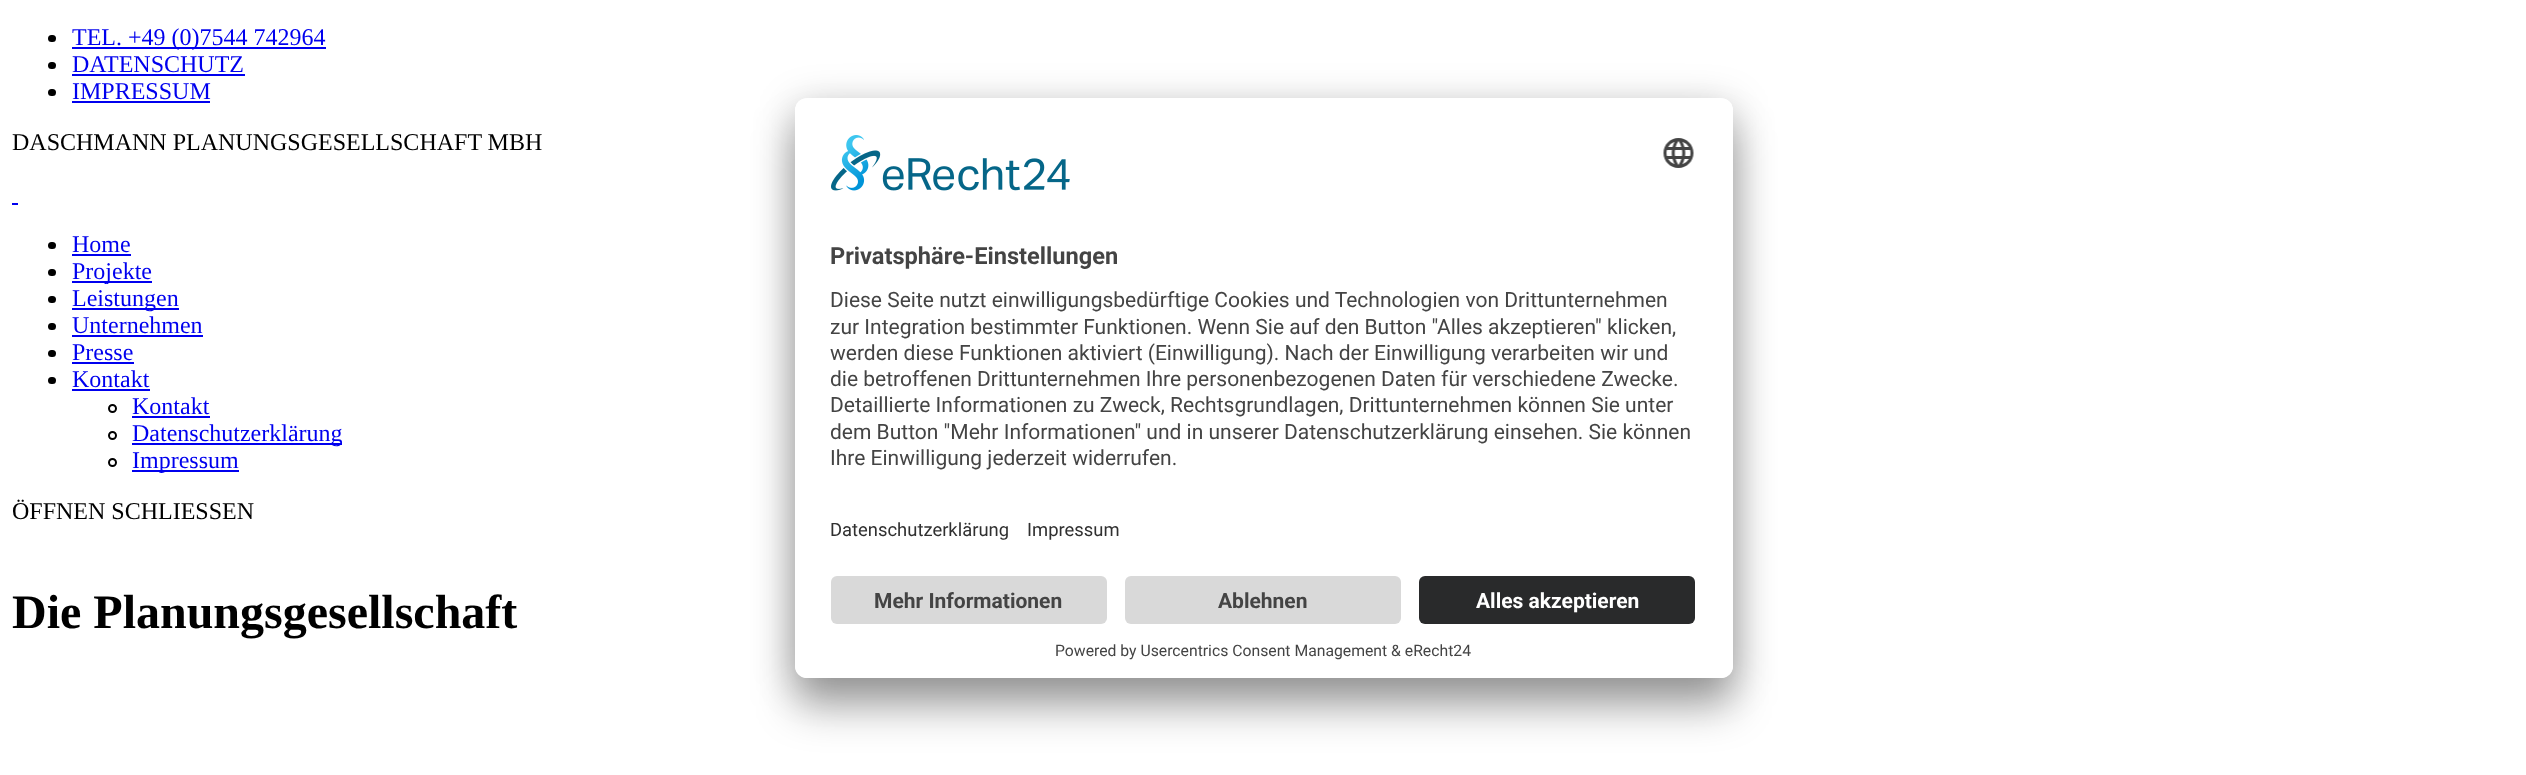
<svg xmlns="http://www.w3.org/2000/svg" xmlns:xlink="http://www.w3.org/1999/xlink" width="2526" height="775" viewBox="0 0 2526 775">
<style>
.cls-1{font:24px Liberation Serif;fill:#0000ee}
.cls-2{font:24px Liberation Serif;fill:#000000}
.cls-3{font:bold 48px Liberation Serif;fill:#000000}
.cls-4{font:bold 23.6px Roboto;fill:#444444}
.cls-5{font:21px Roboto;fill:#444444}
.cls-6{font:18.4px Roboto;fill:#303030}
.cls-7{font:bold 21px Roboto;fill:#444444}
.cls-8{font:bold 21px Roboto;fill:#ffffff}
.cls-9{font:15.75px Roboto;fill:#444444}
</style>
<defs>
<clipPath id="clip1"><rect x="795" y="98" width="938" height="580" rx="12"/></clipPath>
<clipPath id="clip2"><path d="M807 98H1721C1727.5 98 1733 103.5 1733 110V564H795V110C795 103.5 800.5 98 807 98Z"/></clipPath>
</defs>
<rect width="100%" height="100%" fill="#ffffff"/>
<rect fill="#000000" x="48" y="35" width="8" height="7" rx="3.5"/>
<rect fill="#0000ee" x="72" y="47" width="254" height="2"/>
<rect fill="#000000" x="48" y="62" width="8" height="7" rx="3.5"/>
<rect fill="#0000ee" x="72" y="74" width="173" height="2"/>
<rect fill="#000000" x="48" y="89" width="8" height="7" rx="3.5"/>
<rect fill="#0000ee" x="72" y="101" width="138" height="2"/>
<rect fill="#0000ee" x="12" y="203" width="6" height="2"/>
<rect fill="#000000" x="48" y="242" width="8" height="7" rx="3.5"/>
<rect fill="#0000ee" x="72" y="254" width="59" height="2"/>
<rect fill="#000000" x="48" y="269" width="8" height="7" rx="3.5"/>
<rect fill="#0000ee" x="72" y="281" width="80" height="2"/>
<rect fill="#000000" x="48" y="296" width="8" height="7" rx="3.5"/>
<rect fill="#0000ee" x="72" y="308" width="107" height="2"/>
<rect fill="#000000" x="48" y="323" width="8" height="7" rx="3.5"/>
<rect fill="#0000ee" x="72" y="335" width="131" height="2"/>
<rect fill="#000000" x="48" y="350" width="8" height="7" rx="3.5"/>
<rect fill="#0000ee" x="72" y="362" width="62" height="2"/>
<rect fill="#000000" x="48" y="377" width="8" height="7" rx="3.5"/>
<rect fill="#0000ee" x="72" y="389" width="78" height="2"/>
<circle fill="none" stroke="#000000" stroke-width="2" cx="112.5" cy="408.5" r="3.5"/>
<rect fill="#0000ee" x="132" y="416" width="78" height="2"/>
<circle fill="none" stroke="#000000" stroke-width="2" cx="112.5" cy="435.5" r="3.5"/>
<rect fill="#0000ee" x="132" y="443" width="210" height="2"/>
<circle fill="none" stroke="#000000" stroke-width="2" cx="112.5" cy="462.5" r="3.5"/>
<rect fill="#0000ee" x="132" y="470" width="107" height="2"/>
<rect fill="#000000" fill-opacity="0.3" filter="blur(21px)" x="795" y="128" width="938" height="580" rx="12"/>
<rect fill="#000000" fill-opacity="0.22" filter="blur(19.5px)" x="795" y="105" width="938" height="581" rx="12"/>
<rect fill="#ffffff" x="795" y="98" width="938" height="580" rx="12"/>
<g clip-path="url(#clip1)">
<g clip-path="url(#clip2)">
<rect fill="#ffffff" x="795" y="99" width="938" height="465"/>
</g>
</g>
<image xlink:href="image0.png" x="831" y="135" width="239" height="56"/>
<image xlink:href="image1.png" x="1663" y="138" width="31" height="30"/>
<path fill="#ffffff" d="M795 564H1733V666C1733 672.5 1727.5 678 1721 678H807C800.5 678 795 672.5 795 666Z"/>
<rect fill="#d9d9d9" x="831" y="576" width="276" height="48" rx="6"/>
<rect fill="#d9d9d9" x="1125" y="576" width="276" height="48" rx="6"/>
<rect fill="#292a2b" x="1419" y="576" width="276" height="48" rx="6"/>
<text class="cls-1"><tspan x="72" y="45">TEL. +49 (0)7544 742964</tspan><tspan x="72" y="72">DATENSCHUTZ</tspan><tspan x="72" y="99">IMPRESSUM</tspan></text>
<text class="cls-2" x="12" y="150">DASCHMANN PLANUNGSGESELLSCHAFT MBH</text>
<text class="cls-1"><tspan x="72" y="252">Home</tspan><tspan x="72" y="279">Projekte</tspan><tspan x="72" y="306">Leistungen</tspan><tspan x="72" y="333">Unternehmen</tspan><tspan x="72" y="360">Presse</tspan><tspan x="72" y="387">Kontakt</tspan></text>
<text class="cls-1"><tspan x="132" y="414">Kontakt</tspan><tspan x="132" y="441">Datenschutzerklärung</tspan><tspan x="132" y="468">Impressum</tspan></text>
<text class="cls-2" x="12" y="519">ÖFFNEN SCHLIESSEN</text>
<text class="cls-3" x="12" y="628">Die Planungsgesellschaft</text>
<text class="cls-4" x="830" y="264">Privatsphäre-Einstellungen</text>
<text class="cls-5"><tspan x="830" y="307">Diese Seite nutzt einwilligungsbedürftige Cookies und Technologien von Drittunternehmen</tspan><tspan x="830" y="334">zur Integration bestimmter Funktionen. Wenn Sie auf den Button "Alles akzeptieren" klicken,</tspan><tspan x="830" y="360">werden diese Funktionen aktiviert (Einwilligung). Nach der Einwilligung verarbeiten wir und</tspan><tspan x="830" y="386">die betroffenen Drittunternehmen Ihre personenbezogenen Daten für verschiedene Zwecke.</tspan><tspan x="830" y="412">Detaillierte Informationen zu Zweck, Rechtsgrundlagen, Drittunternehmen können Sie unter</tspan><tspan x="830" y="439">dem Button "Mehr Informationen" und in unserer Datenschutzerklärung einsehen. Sie können</tspan><tspan x="830" y="465">Ihre Einwilligung jederzeit widerrufen.</tspan></text>
<text class="cls-6" x="830" y="536">Datenschutzerklärung</text>
<text class="cls-6" x="1027" y="536">Impressum</text>
<text class="cls-7" x="874" y="608">Mehr Informationen</text>
<text class="cls-7" x="1218" y="608">Ablehnen</text>
<text class="cls-8" x="1476" y="608">Alles akzeptieren</text>
<text class="cls-9" x="1055" y="656">Powered by Usercentrics Consent Management &amp; eRecht24</text>
</svg>
